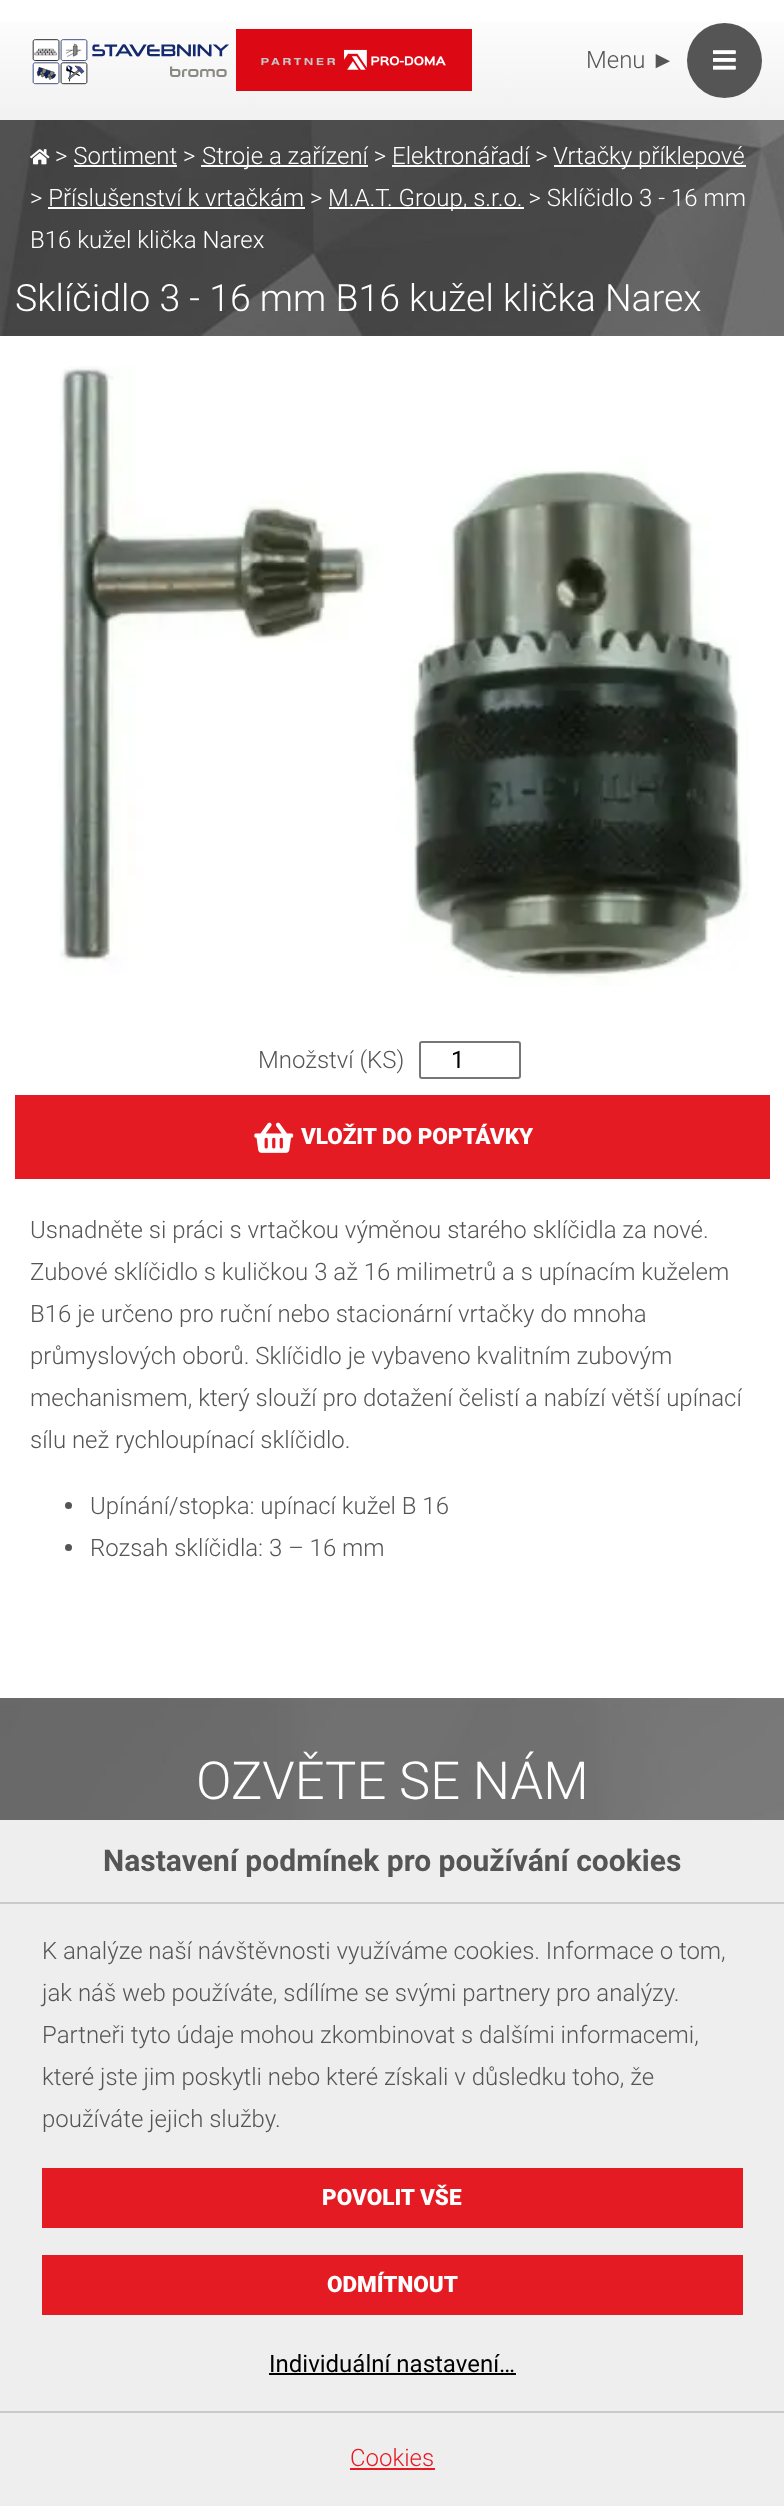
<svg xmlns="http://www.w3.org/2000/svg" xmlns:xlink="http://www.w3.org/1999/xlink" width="784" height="2506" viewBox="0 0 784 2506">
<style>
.cls-1{font:300 24px Roboto;fill:#555555}
.cls-2{font:24px Liberation Sans;fill:#555555}
.cls-3{font:300 24px Roboto;fill:#ffffff}
.cls-4{font:300 37.5px Roboto;fill:#ffffff}
.cls-5{font:24px Roboto;fill:#000000}
.cls-6{font:900 22.5px Roboto;fill:#ffffff}
.cls-7{font:300 52.5px Roboto;fill:#ffffff}
.cls-8{font:bold 30px Roboto;fill:#555555}
.cls-9{font:300 24px Roboto;fill:#e51b24}
</style>
<defs>
<linearGradient id="g1" gradientUnits="userSpaceOnUse" x1="392" y1="0" x2="392" y2="120"><stop offset="0" stop-color="#ffffff"/><stop offset="1" stop-color="#f1f1f1"/></linearGradient>
</defs>
<rect width="100%" height="100%" fill="#ffffff"/>
<image xlink:href="image0.png" x="0" y="120" width="784" height="216"/>
<rect fill="url(#g1)" x="0" y="21" width="784" height="99"/>
<image xlink:href="image1.png" x="32" y="39" width="197" height="46"/>
<image xlink:href="image2.png" x="236" y="29" width="236" height="62"/>
<circle fill="#555555" cx="724.5" cy="60.5" r="37.5"/>
<image xlink:href="image3.png" x="713" y="50" width="23" height="20"/>
<image xlink:href="image4.png" x="30" y="149" width="20" height="16"/>
<rect fill="#ffffff" x="201" y="165" width="167" height="2"/>
<rect fill="#ffffff" x="554" y="165" width="192" height="2"/>
<rect fill="#ffffff" x="74" y="165" width="103" height="2"/>
<rect fill="#ffffff" x="392" y="165" width="138" height="2"/>
<rect fill="#ffffff" x="48" y="207" width="257" height="2"/>
<rect fill="#ffffff" x="329" y="207" width="195" height="2"/>
<image xlink:href="image5.png" x="58" y="366" width="691" height="620"/>
<rect fill="none" stroke="#767676" stroke-width="2" x="420" y="1042" width="100" height="36" rx="2"/>
<rect fill="#e51b24" x="15" y="1095" width="755" height="84"/>
<image xlink:href="image6.png" x="254" y="1122" width="40" height="31"/>
<circle fill="#555555" cx="68.5" cy="1505.5" r="3.5"/>
<circle fill="#555555" cx="68.5" cy="1547.5" r="3.5"/>
<image xlink:href="image7.png" x="0" y="1698" width="784" height="122"/>
<rect fill="#eeeeee" x="0" y="1820" width="784" height="686"/>
<rect fill="#cacaca" x="0" y="1902" width="784" height="2"/>
<rect fill="#e51b24" x="42" y="2168" width="701" height="60"/>
<rect fill="#e51b24" x="42" y="2255" width="701" height="60"/>
<rect fill="#000000" x="269" y="2373" width="247" height="2"/>
<rect fill="#cacaca" x="0" y="2411" width="784" height="2"/>
<rect fill="#e51b24" x="350" y="2468" width="85" height="2"/>
<text class="cls-1" x="586" y="68">Menu</text>
<text class="cls-2" x="651" y="68">►</text>
<text class="cls-3" x="55" y="164">&gt; Sortiment &gt;</text>
<text class="cls-3" x="202" y="164">Stroje a zařízení &gt; Elektronářadí &gt;</text>
<text class="cls-3" x="553" y="164">Vrtačky příklepové</text>
<text class="cls-3" x="30" y="206">&gt; Příslušenství k vrtačkám &gt;</text>
<text class="cls-3" x="328" y="206">M.A.T. Group, s.r.o. &gt; Sklíčidlo 3 - 16 mm</text>
<text class="cls-3" x="30" y="248">B16 kužel klička Narex</text>
<text class="cls-4" x="15" y="311">Sklíčidlo 3 - 16 mm B16 kužel klička Narex</text>
<text class="cls-1" x="258" y="1068">Množství (KS)</text>
<text class="cls-5" x="451" y="1068">1</text>
<text class="cls-6" x="301" y="1144">VLOŽIT DO POPTÁVKY</text>
<text class="cls-1"><tspan x="30" y="1238">Usnadněte si práci s vrtačkou výměnou starého sklíčidla za nové.</tspan><tspan x="30" y="1280">Zubové sklíčidlo s kuličkou 3 až 16 milimetrů a s upínacím kuželem</tspan><tspan x="30" y="1322">B16 je určeno pro ruční nebo stacionární vrtačky do mnoha</tspan><tspan x="30" y="1364">průmyslových oborů. Sklíčidlo je vybaveno kvalitním zubovým</tspan><tspan x="30" y="1406">mechanismem, který slouží pro dotažení čelistí a nabízí větší upínací</tspan><tspan x="30" y="1448">sílu než rychloupínací sklíčidlo.</tspan></text>
<text class="cls-1"><tspan x="90" y="1514">Upínání/stopka: upínací kužel B 16</tspan><tspan x="90" y="1556">Rozsah sklíčidla: 3 – 16 mm</tspan></text>
<text class="cls-7" x="196" y="1799">OZVĚTE SE NÁM</text>
<text class="cls-8" x="103" y="1871">Nastavení podmínek pro používání cookies</text>
<text class="cls-1"><tspan x="42" y="1959">K analýze naší návštěvnosti využíváme cookies. Informace o tom,</tspan><tspan x="42" y="2001">jak náš web používáte, sdílíme se svými partnery pro analýzy.</tspan><tspan x="42" y="2043">Partneři tyto údaje mohou zkombinovat s dalšími informacemi,</tspan><tspan x="42" y="2085">které jste jim poskytli nebo které získali v důsledku toho, že</tspan><tspan x="42" y="2127">používáte jejich služby.</tspan></text>
<text class="cls-6" x="322" y="2205">POVOLIT VŠE</text>
<text class="cls-6" x="327" y="2292">ODMÍTNOUT</text>
<text class="cls-5" x="269" y="2372">Individuální nastavení…</text>
<text class="cls-9" x="350" y="2466">Cookies</text>
</svg>
